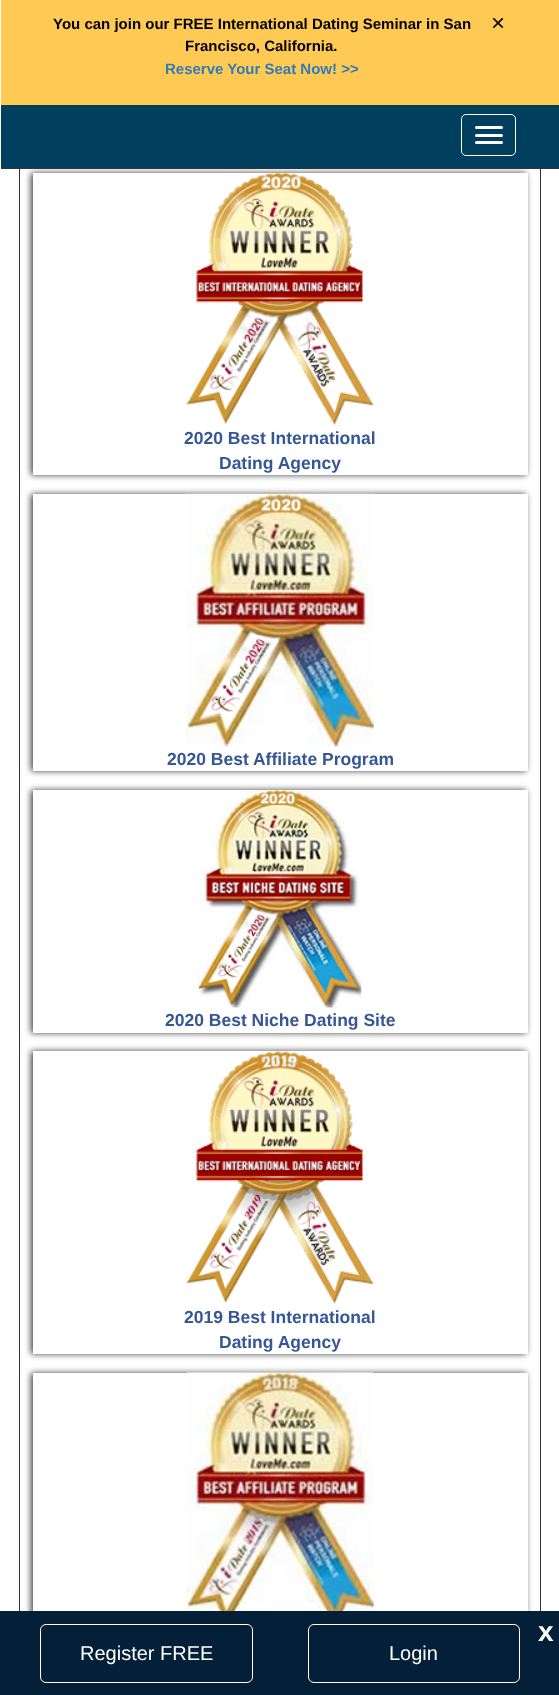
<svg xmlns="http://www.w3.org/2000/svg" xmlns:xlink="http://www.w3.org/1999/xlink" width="559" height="1695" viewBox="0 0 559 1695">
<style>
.cls-1{font:bold 15px Liberation Sans;fill:#000000}
.cls-2{font:bold 15px Liberation Sans;fill:#337ab7}
.cls-3{font:24px Liberation Sans;fill:#000000}
.cls-4{font:bold 17.5px Liberation Sans;fill:#355795}
.cls-5{font:bold 28px Liberation Sans;fill:#ffffff}
.cls-6{font:20px Liberation Sans;fill:#ffffff}
</style>
<defs>
<clipPath id="clip1"><path d="M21 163H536V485H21ZM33 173H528V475H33Z" clip-rule="evenodd"/></clipPath>
<clipPath id="clip2"><path d="M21 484H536V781H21ZM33 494H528V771H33Z" clip-rule="evenodd"/></clipPath>
<clipPath id="clip3"><path d="M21 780H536V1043H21ZM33 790H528V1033H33Z" clip-rule="evenodd"/></clipPath>
<clipPath id="clip4"><path d="M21 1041H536V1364H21ZM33 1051H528V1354H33Z" clip-rule="evenodd"/></clipPath>
<clipPath id="clip5"><path d="M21 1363H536V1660H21ZM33 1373H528V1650H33Z" clip-rule="evenodd"/></clipPath>
</defs>
<rect width="100%" height="100%" fill="#ffffff"/>
<rect fill="none" stroke="#333333" x="19.5" y="-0.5" width="521" height="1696"/>
<rect fill="#ffca54" x="1" y="0" width="558" height="105"/>
<g clip-path="url(#clip1)">
<rect fill="#000000" fill-opacity="0.75" filter="blur(3px)" x="31" y="173" width="495" height="302"/>
</g>
<rect fill="#003f5e" x="1" y="105" width="558" height="63"/>
<rect fill="#333333" x="1" y="168" width="558" height="1"/>
<rect fill="none" stroke="#ffffff" x="461.5" y="114.5" width="54" height="41" rx="4.5"/>
<rect fill="#ffffff" x="475" y="126" width="28" height="3" rx="1.5"/>
<rect fill="#ffffff" x="475" y="134" width="28" height="3" rx="1.5"/>
<rect fill="#ffffff" x="475" y="141" width="28" height="3" rx="1.5"/>
<image xlink:href="image0.png" x="186" y="172" width="188" height="253"/>
<g clip-path="url(#clip2)">
<rect fill="#000000" fill-opacity="0.75" filter="blur(3px)" x="31" y="494" width="495" height="277"/>
</g>
<image xlink:href="image1.png" x="186" y="493" width="188" height="254"/>
<g clip-path="url(#clip3)">
<rect fill="#000000" fill-opacity="0.75" filter="blur(3px)" x="31" y="790" width="495" height="243"/>
</g>
<image xlink:href="image2.png" x="198" y="790" width="164" height="218"/>
<g clip-path="url(#clip4)">
<rect fill="#000000" fill-opacity="0.75" filter="blur(3px)" x="31" y="1051" width="495" height="303"/>
</g>
<image xlink:href="image3.png" x="186" y="1051" width="188" height="253"/>
<g clip-path="url(#clip5)">
<rect fill="#000000" fill-opacity="0.75" filter="blur(3px)" x="31" y="1373" width="495" height="277"/>
</g>
<image xlink:href="image4.png" x="186" y="1372" width="188" height="239"/>
<rect fill="#042038" x="0" y="1611" width="559" height="84"/>
<rect fill="none" stroke="#ffffff" x="40.5" y="1624.5" width="212" height="58" rx="5.5"/>
<rect fill="none" stroke="#ffffff" x="308.5" y="1624.5" width="211" height="58" rx="5.5"/>
<text class="cls-1" x="53" y="29">You can join our FREE International Dating Seminar in San</text>
<text class="cls-1" x="185" y="51">Francisco, California.</text>
<text class="cls-2" x="165" y="74">Reserve Your Seat Now! &gt;&gt;</text>
<text class="cls-3" x="491" y="31">×</text>
<text class="cls-4" x="184" y="444">2020 Best International</text>
<text class="cls-4" x="219" y="469">Dating Agency</text>
<text class="cls-4" x="167" y="765">2020 Best Affiliate Program</text>
<text class="cls-4" x="165" y="1026">2020 Best Niche Dating Site</text>
<text class="cls-4" x="184" y="1323">2019 Best International</text>
<text class="cls-4" x="219" y="1348">Dating Agency</text>
<text class="cls-5" x="538" y="1641">x</text>
<text class="cls-6" x="80" y="1660">Register FREE</text>
<text class="cls-6" x="389" y="1660">Login</text>
</svg>
